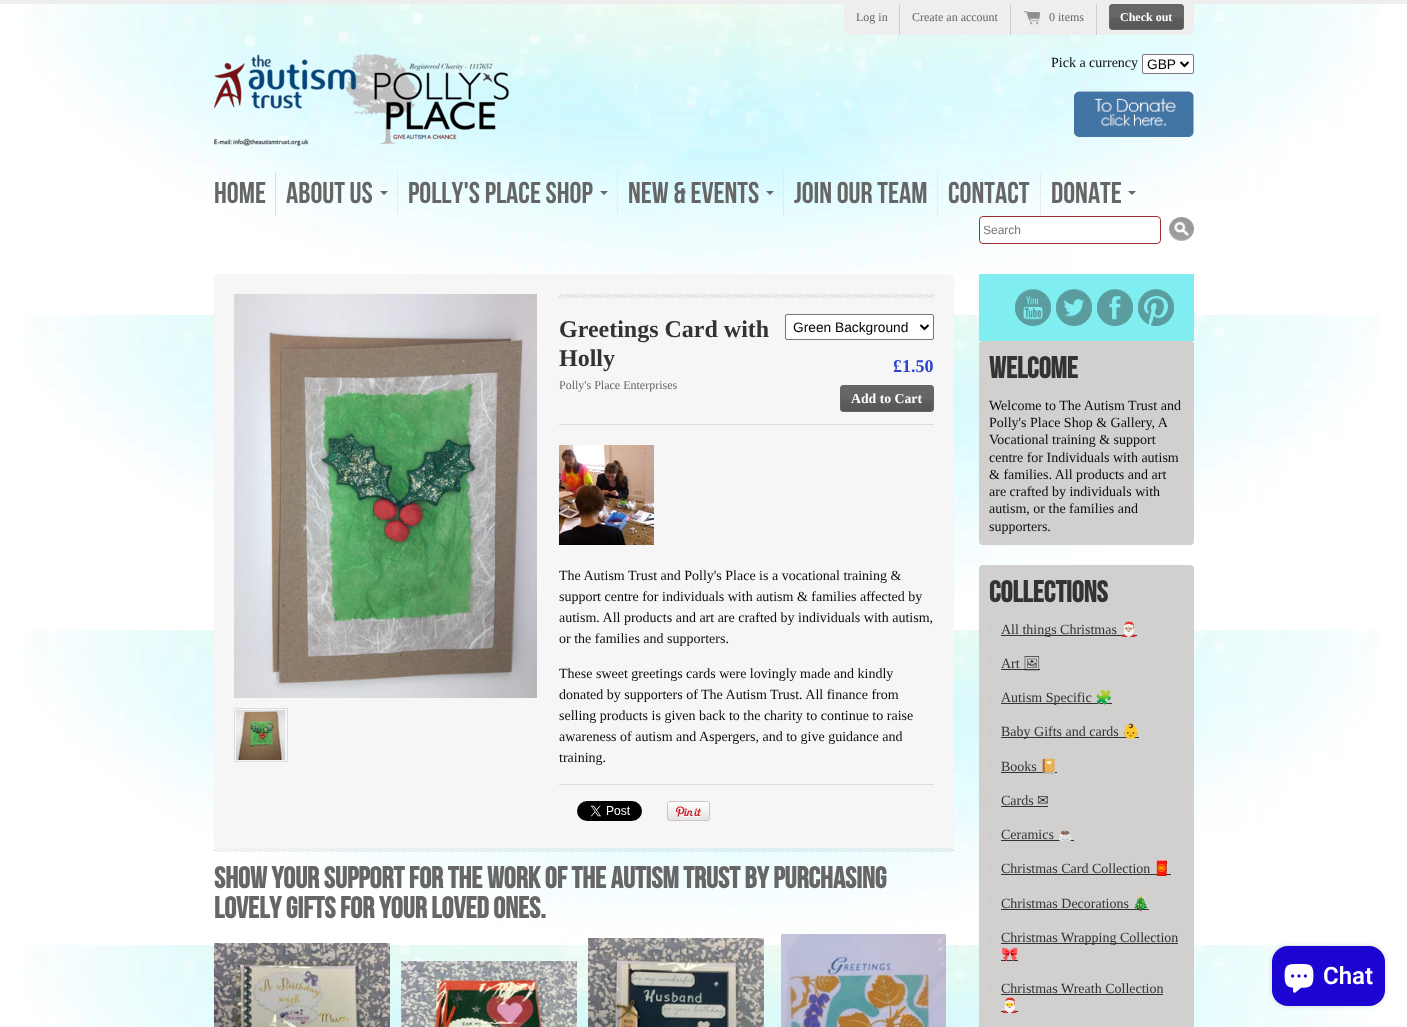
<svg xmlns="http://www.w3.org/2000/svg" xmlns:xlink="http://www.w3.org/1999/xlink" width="1407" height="1027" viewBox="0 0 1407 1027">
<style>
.cls-1{font:12px Liberation Serif;fill:#666666}
.cls-2{font:bold 12px Liberation Serif;fill:#ffffff}
.cls-3{font:14px Liberation Serif;fill:#0c0c0c}
.cls-4{font:13.75px Liberation Sans;fill:#000000}
.cls-5{font:30px Bebas Neue;fill:#666666}
.cls-6{font:12px Liberation Sans;fill:#757575}
.cls-7{font:bold 24px Liberation Serif;fill:#333333}
.cls-8{font:bold 18px Liberation Serif;fill:#2f44cb}
.cls-9{font:bold 13.75px Liberation Serif;fill:#ffffff}
.cls-10{font:bold 30px Bebas Neue;fill:#666666}
.cls-11{font:bold 30px Bebas Neue;fill:#333333}
.cls-12{font:14px Liberation Serif;fill:#333333}
.cls-13{font:14px Noto Color Emoji;fill:#333333}
.cls-14{font:14px Noto Emoji;fill:#333333}
.cls-15{font:14px DejaVu Sans;fill:#333333}
.cls-16{font:600 24px Roboto;fill:#ffffff}
</style>
<rect width="100%" height="100%" fill="#ffffff"/>
<image xlink:href="image0.png" x="22" y="4" width="1358" height="1023"/>
<rect fill="#eeeeee" x="0" y="0" width="1407" height="4"/>
<path fill="#eeeeee" d="M844 4H1194V29C1194 32.5 1191.5 35 1188 35H850C846.5 35 844 32.5 844 29Z"/>
<rect fill="#cccccc" x="899" y="4" width="1" height="31"/>
<rect fill="#cccccc" x="1010" y="4" width="1" height="31"/>
<rect fill="#cccccc" x="1096" y="4" width="1" height="31"/>
<image xlink:href="image1.png" x="1023" y="10" width="17" height="15"/>
<rect fill="#666666" x="1109" y="4" width="75" height="26" rx="4"/>
<image xlink:href="image2.png" x="1109" y="17" width="75" height="12"/>
<rect fill="none" stroke="#666666" x="1109.5" y="4.5" width="74" height="25" rx="3.5"/>
<image xlink:href="image3.png" x="214" y="54" width="295" height="92"/>
<rect fill="#ffffff" stroke="#767676" x="1142.5" y="54.5" width="51" height="19" rx="1.5"/>
<path fill="none" stroke="#000000" stroke-width="2" d="M1180.5 62L1184.5 66L1188.5 62"/>
<image xlink:href="image4.png" x="1074" y="91" width="120" height="46"/>
<rect fill="#dddddd" x="275" y="172" width="1" height="44"/>
<path fill="none" stroke="#dddddd" stroke-dasharray="1 1" d="M397.5 172V216"/>
<path fill="#666666" d="M380 191H388L384 195Z"/>
<path fill="none" stroke="#dddddd" stroke-dasharray="1 1" d="M617.5 172V216"/>
<path fill="#666666" d="M600 191H608L604 195Z"/>
<path fill="none" stroke="#dddddd" stroke-dasharray="1 1" d="M783.5 172V216"/>
<path fill="#666666" d="M766 191H774L770 195Z"/>
<path fill="none" stroke="#dddddd" stroke-dasharray="1 1" d="M937.5 172V216"/>
<path fill="none" stroke="#dddddd" stroke-dasharray="1 1" d="M1040.5 172V216"/>
<path fill="#666666" d="M1128 191H1136L1132 195Z"/>
<rect fill="#ffffff" stroke="#a12d2d" x="979.5" y="216.5" width="181" height="27" rx="3.5"/>
<image xlink:href="image5.png" x="1169" y="217" width="25" height="24"/>
<path fill="#f6f6f6" d="M218 274H950C952 274 954 276 954 278V848H214V278C214 276 216 274 218 274Z"/>
<image xlink:href="image6.png" x="234" y="294" width="303" height="404"/>
<rect fill="none" stroke="#dddddd" x="234.5" y="708.5" width="53" height="53"/>
<image xlink:href="image7.png" x="236" y="710" width="49" height="50"/>
<image xlink:href="image8.png" x="559" y="294" width="375" height="4"/>
<rect fill="#dddddd" x="559" y="424" width="375" height="1"/>
<rect fill="#ffffff" stroke="#767676" x="785.5" y="314.5" width="148" height="25" rx="1.5"/>
<path fill="none" stroke="#000000" stroke-width="2" d="M920.5 325L924.5 329L928.5 325"/>
<rect fill="#666666" x="840" y="385" width="94" height="27" rx="4"/>
<image xlink:href="image9.png" x="840" y="399" width="94" height="12"/>
<rect fill="none" stroke="#666666" x="840.5" y="385.5" width="93" height="26" rx="3.5"/>
<image xlink:href="image10.png" x="559" y="445" width="95" height="100"/>
<rect fill="#dddddd" x="559" y="784" width="375" height="1"/>
<image xlink:href="image11.png" x="577" y="801" width="65" height="20"/>
<image xlink:href="image12.png" x="667" y="801" width="43" height="20"/>
<image xlink:href="image13.png" x="214" y="848" width="740" height="4"/>
<image xlink:href="image14.png" x="214" y="943" width="176" height="84"/>
<image xlink:href="image15.png" x="401" y="961" width="176" height="66"/>
<image xlink:href="image16.png" x="588" y="938" width="176" height="89"/>
<image xlink:href="image17.png" x="781" y="934" width="165" height="93"/>
<rect fill="#80eef0" x="979" y="274" width="215" height="67"/>
<image xlink:href="image18.png" x="1015" y="289" width="36" height="37"/>
<image xlink:href="image19.png" x="1056" y="289" width="36" height="37"/>
<image xlink:href="image20.png" x="1097" y="289" width="36" height="37"/>
<image xlink:href="image21.png" x="1138" y="289" width="36" height="37"/>
<rect fill="#d2cfcf" x="979" y="341" width="215" height="204" rx="4"/>
<rect fill="#d2cfcf" x="979" y="565" width="215" height="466" rx="4"/>
<path fill="none" stroke="#cccccc" stroke-dasharray="1 1" d="M989 646.5H1184"/>
<path fill="#cccccc" d="M989 633V625L993 629ZM989 667V659L993 663Z"/>
<rect fill="#333333" x="1001" y="635" width="136" height="1"/>
<rect fill="#333333" x="1001" y="669" width="39" height="1"/>
<path fill="none" stroke="#cccccc" stroke-dasharray="1 1" d="M989 680.5H1184"/>
<path fill="none" stroke="#cccccc" stroke-dasharray="1 1" d="M989 714.5H1184"/>
<path fill="#cccccc" d="M989 701V693L993 697ZM989 735V727L993 731Z"/>
<rect fill="#333333" x="1001" y="703" width="111" height="1"/>
<rect fill="#333333" x="1001" y="737" width="138" height="1"/>
<path fill="none" stroke="#cccccc" stroke-dasharray="1 1" d="M989 749.5H1184"/>
<path fill="none" stroke="#cccccc" stroke-dasharray="1 1" d="M989 783.5H1184"/>
<path fill="#cccccc" d="M989 770V762L993 766ZM989 804V796L993 800Z"/>
<rect fill="#333333" x="1001" y="772" width="56" height="1"/>
<rect fill="#333333" x="1001" y="806" width="47" height="1"/>
<path fill="none" stroke="#cccccc" stroke-dasharray="1 1" d="M989 817.5H1184"/>
<path fill="none" stroke="#cccccc" stroke-dasharray="1 1" d="M989 851.5H1184"/>
<path fill="#cccccc" d="M989 838V830L993 834ZM989 872V864L993 868Z"/>
<rect fill="#333333" x="1001" y="840" width="73" height="1"/>
<rect fill="#333333" x="1001" y="874" width="170" height="1"/>
<path fill="none" stroke="#cccccc" stroke-dasharray="1 1" d="M989 886.5H1184"/>
<path fill="none" stroke="#cccccc" stroke-dasharray="1 1" d="M989 920.5H1184"/>
<path fill="#cccccc" d="M989 907V899L993 903ZM989 941V933L993 937Z"/>
<rect fill="#333333" x="1001" y="909" width="148" height="1"/>
<rect fill="#333333" x="1001" y="943" width="177" height="1"/>
<rect fill="#333333" x="1001" y="960" width="17" height="1"/>
<path fill="none" stroke="#cccccc" stroke-dasharray="1 1" d="M989 971.5H1184"/>
<path fill="#cccccc" d="M989 992V984L993 988Z"/>
<rect fill="#333333" x="1001" y="994" width="162" height="1"/>
<rect fill="#333333" x="1001" y="1011" width="17" height="1"/>
<path fill="none" stroke="#cccccc" stroke-dasharray="1 1" d="M989 1023.5H1184"/>
<rect fill="#000000" fill-opacity="0.15" filter="blur(2.5px)" x="1272" y="946" width="113" height="60" rx="16"/>
<rect fill="#1c04d2" x="1272" y="946" width="113" height="60" rx="16"/>
<image xlink:href="image22.png" x="1284" y="964" width="30" height="29"/>
<text class="cls-1" x="856" y="21">Log in</text>
<text class="cls-1" x="912" y="21">Create an account</text>
<text class="cls-1" x="1049" y="21">0 items</text>
<text class="cls-2" x="1120" y="21">Check out</text>
<text class="cls-3" x="1051" y="67">Pick a currency</text>
<text class="cls-4" x="1147" y="69">GBP</text>
<text class="cls-5" x="214" y="203">Home</text>
<text class="cls-5" x="286" y="203">About Us</text>
<text class="cls-5" x="408" y="203">Polly's Place Shop</text>
<text class="cls-5" x="628" y="203">New &amp; Events</text>
<text class="cls-5" x="794" y="203">Join Our Team</text>
<text class="cls-5" x="948" y="203">Contact</text>
<text class="cls-5" x="1051" y="203">Donate</text>
<text class="cls-6" x="983" y="234">Search</text>
<text class="cls-7"><tspan x="559" y="337">Greetings Card with</tspan><tspan x="559" y="366">Holly</tspan></text>
<text class="cls-1" x="559" y="389">Polly's Place Enterprises</text>
<text class="cls-4" x="793" y="332">Green Background</text>
<text class="cls-8" x="893" y="372">£1.50</text>
<text class="cls-9" x="851" y="403">Add to Cart</text>
<text class="cls-3"><tspan x="559" y="580">The Autism Trust and Polly's Place is a vocational training &amp;</tspan><tspan x="559" y="601">support centre for individuals with autism &amp; families affected by</tspan><tspan x="559" y="622">autism. All products and art are crafted by individuals with autism,</tspan><tspan x="559" y="643">or the families and supporters.</tspan></text>
<text class="cls-3"><tspan x="559" y="678">These sweet greetings cards were lovingly made and kindly</tspan><tspan x="559" y="699">donated by supporters of The Autism Trust. All finance from</tspan><tspan x="559" y="720">selling products is given back to the charity to continue to raise</tspan><tspan x="559" y="741">awareness of autism and Aspergers, and to give guidance and</tspan><tspan x="559" y="762">training.</tspan></text>
<text class="cls-10"><tspan x="214" y="888">Show your support for the work of The Autism Trust by purchasing</tspan><tspan x="214" y="918">lovely gifts for your loved ones.</tspan></text>
<text class="cls-11" x="989" y="378">Welcome</text>
<text class="cls-3"><tspan x="989" y="410">Welcome to The Autism Trust and</tspan><tspan x="989" y="427">Polly's Place Shop &amp; Gallery, A</tspan><tspan x="989" y="444">Vocational training &amp; support</tspan><tspan x="989" y="462">centre for Individuals with autism</tspan><tspan x="989" y="479">&amp; families. All products and art</tspan><tspan x="989" y="496">are crafted by individuals with</tspan><tspan x="989" y="513">autism, or the families and</tspan><tspan x="989" y="531">supporters.</tspan></text>
<text class="cls-11" x="989" y="602">Collections</text>
<text class="cls-12" x="1001" y="634">All things Christmas</text>
<text class="cls-13" x="1120" y="634">🎅🏼</text>
<text class="cls-12" x="1001" y="668">Art</text>
<text class="cls-14" x="1023" y="668">🖼</text>
<text class="cls-12" x="1001" y="702">Autism Specific</text>
<text class="cls-13" x="1095" y="702">🧩</text>
<text class="cls-12" x="1001" y="736">Baby Gifts and cards</text>
<text class="cls-13" x="1122" y="736">👶</text>
<text class="cls-12" x="1001" y="771">Books</text>
<text class="cls-13" x="1040" y="771">📔</text>
<text class="cls-12" x="1001" y="805">Cards</text>
<text class="cls-15" x="1037" y="805">✉</text>
<text class="cls-12" x="1001" y="839">Ceramics</text>
<text class="cls-13" x="1057" y="839">☕</text>
<text class="cls-12" x="1001" y="873">Christmas Card Collection</text>
<text class="cls-13" x="1153" y="873">🧧</text>
<text class="cls-12" x="1001" y="908">Christmas Decorations</text>
<text class="cls-13" x="1132" y="908">🎄</text>
<text class="cls-12" x="1001" y="942">Christmas Wrapping Collection</text>
<text class="cls-13" x="1001" y="959">🎀</text>
<text class="cls-12" x="1001" y="993">Christmas Wreath Collection</text>
<text class="cls-13" x="1001" y="1010">🎅</text>
<text class="cls-16" x="1323" y="984">Chat</text>
</svg>
